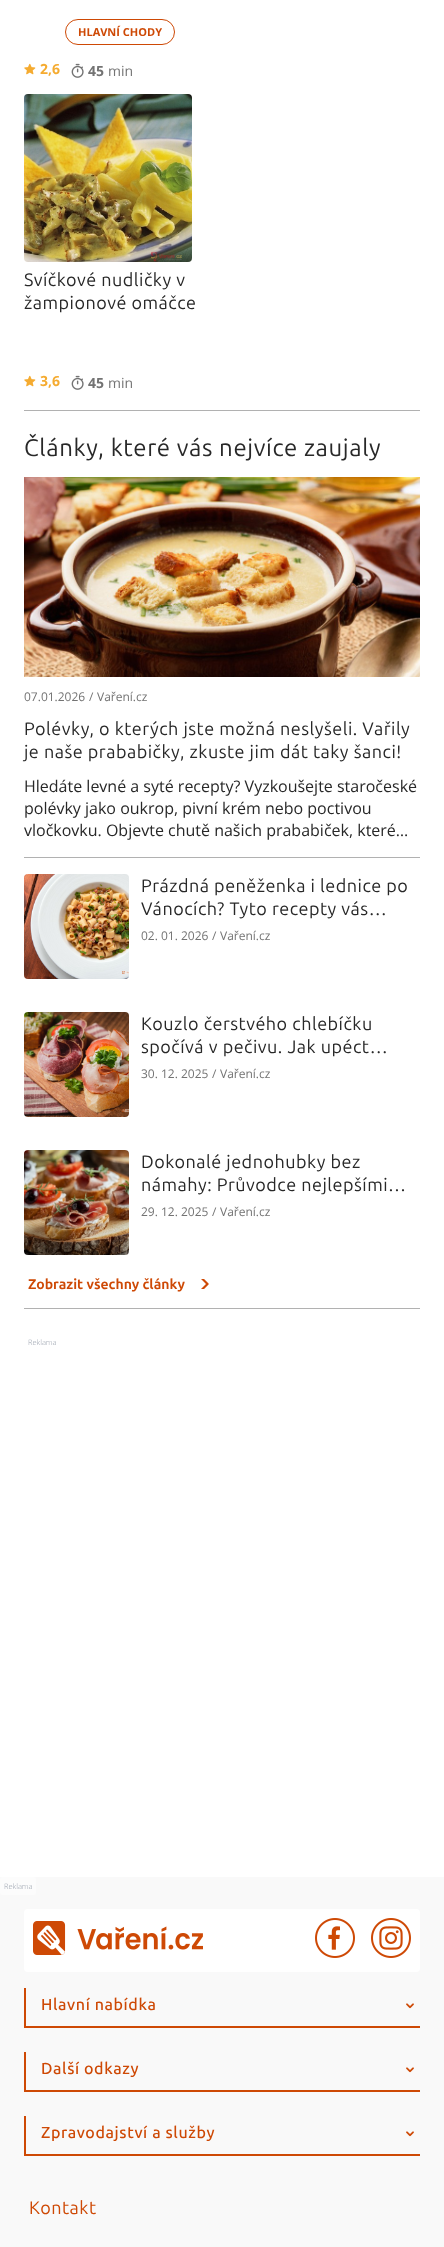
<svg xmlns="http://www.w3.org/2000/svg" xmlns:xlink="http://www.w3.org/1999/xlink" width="444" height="2247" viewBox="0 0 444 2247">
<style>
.cls-1{font:bold 11px Open Sans;fill:#ce4905}
.cls-2{font:bold 14px Open Sans;fill:#f5ab30}
.cls-3{font:bold 14px Open Sans;fill:#737373}
.cls-4{font:14px Open Sans;fill:#737373}
.cls-5{font:18px Ubuntu;letter-spacing:0.5px;fill:#282828}
.cls-6{font:24px Ubuntu;letter-spacing:0.6px;fill:#282828}
.cls-7{font:12px Open Sans;fill:#737373}
.cls-8{font:16px Open Sans;fill:#282828}
.cls-9{font:bold 14px Ubuntu;fill:#ce4905}
.cls-10{font:300 7.5px Open Sans;fill:#9ca3af}
.cls-11{font:500 16px Ubuntu;letter-spacing:0.6px;fill:#ce4905}
.cls-12{font:18px Ubuntu;letter-spacing:0.5px;fill:#ce4905}
</style>
<rect width="100%" height="100%" fill="#ffffff"/>
<rect fill="#b1b1b1" x="24" y="410" width="396" height="1"/>
<rect fill="none" stroke="#ce4905" x="65.5" y="19.5" width="109" height="25" rx="12.5"/>
<image xlink:href="image0.png" x="24" y="63" width="12" height="12"/>
<image xlink:href="image1.png" x="71" y="63" width="13" height="15"/>
<image xlink:href="image2.png" x="24" y="94" width="168" height="168"/>
<image xlink:href="image0.png" x="24" y="375" width="12" height="12"/>
<image xlink:href="image1.png" x="71" y="375" width="13" height="15"/>
<rect fill="#b1b1b1" x="24" y="1308" width="396" height="1"/>
<rect fill="#b1b1b1" x="24" y="857" width="396" height="1"/>
<image xlink:href="image3.png" x="24" y="477" width="396" height="200"/>
<image xlink:href="image4.png" x="24" y="874" width="105" height="105"/>
<image xlink:href="image5.png" x="24" y="1012" width="105" height="105"/>
<image xlink:href="image6.png" x="24" y="1150" width="105" height="105"/>
<image xlink:href="image7.png" x="201" y="1279" width="8" height="10"/>
<rect fill="#f9f9f9" x="0" y="1877" width="444" height="370"/>
<rect fill="#fcfcfc" x="0" y="1877" width="36" height="18" rx="2"/>
<rect fill="#ffffff" x="24" y="1909" width="396" height="63" rx="4"/>
<image xlink:href="image8.png" x="33" y="1921" width="170" height="34"/>
<image xlink:href="image9.png" x="315" y="1918" width="40" height="40"/>
<image xlink:href="image10.png" x="371" y="1918" width="40" height="40"/>
<rect fill="#ce4905" x="24" y="2026" width="396" height="2"/>
<rect fill="#ce4905" x="24" y="1988" width="2" height="40"/>
<image xlink:href="image11.png" x="406" y="2003" width="8" height="6"/>
<rect fill="#ce4905" x="24" y="2090" width="396" height="2"/>
<rect fill="#ce4905" x="24" y="2052" width="2" height="40"/>
<image xlink:href="image11.png" x="406" y="2067" width="8" height="6"/>
<rect fill="#ce4905" x="24" y="2154" width="396" height="2"/>
<rect fill="#ce4905" x="24" y="2116" width="2" height="40"/>
<image xlink:href="image11.png" x="406" y="2131" width="8" height="6"/>
<text class="cls-1" x="78" y="36">HLAVNÍ CHODY</text>
<text class="cls-2" x="40" y="74">2,6</text>
<text class="cls-3" x="88" y="76">45</text>
<text class="cls-4" x="108" y="76">min</text>
<text class="cls-5"><tspan x="24" y="286">Svíčkové nudličky v</tspan><tspan x="24" y="309">žampionové omáčce</tspan></text>
<text class="cls-2" x="40" y="386">3,6</text>
<text class="cls-3" x="88" y="388">45</text>
<text class="cls-4" x="108" y="388">min</text>
<text class="cls-6" x="24" y="456">Články, které vás nejvíce zaujaly</text>
<text class="cls-7" x="24" y="701">07.01.2026</text>
<text class="cls-7" x="89" y="701">/</text>
<text class="cls-7" x="97" y="701">Vaření.cz</text>
<text class="cls-5"><tspan x="24" y="735">Polévky, o kterých jste možná neslyšeli. Vařily</tspan><tspan x="24" y="758">je naše prababičky, zkuste jim dát taky šanci!</tspan></text>
<text class="cls-8"><tspan x="24" y="792">Hledáte levné a syté recepty? Vyzkoušejte staročeské</tspan><tspan x="24" y="814">polévky jako oukrop, pivní krém nebo poctivou</tspan><tspan x="24" y="836">vločkovku. Objevte chutě našich prababiček, které…</tspan></text>
<text class="cls-5"><tspan x="141" y="892">Prázdná peněženka i lednice po</tspan><tspan x="141" y="915">Vánocích? Tyto recepty vás…</tspan></text>
<text class="cls-7" x="141" y="940">02. 01. 2026</text>
<text class="cls-7" x="212" y="940">/</text>
<text class="cls-7" x="220" y="940">Vaření.cz</text>
<text class="cls-5"><tspan x="141" y="1030">Kouzlo čerstvého chlebíčku</tspan><tspan x="141" y="1053">spočívá v pečivu. Jak upéct…</tspan></text>
<text class="cls-7" x="141" y="1078">30. 12. 2025</text>
<text class="cls-7" x="212" y="1078">/</text>
<text class="cls-7" x="220" y="1078">Vaření.cz</text>
<text class="cls-5"><tspan x="141" y="1168">Dokonalé jednohubky bez</tspan><tspan x="141" y="1191">námahy: Průvodce nejlepšími…</tspan></text>
<text class="cls-7" x="141" y="1216">29. 12. 2025</text>
<text class="cls-7" x="212" y="1216">/</text>
<text class="cls-7" x="220" y="1216">Vaření.cz</text>
<text class="cls-9" x="28" y="1289">Zobrazit všechny články</text>
<text class="cls-10" x="28" y="1345">Reklama</text>
<text class="cls-10" x="4" y="1889">Reklama</text>
<text class="cls-11" x="41" y="2010">Hlavní nabídka</text>
<text class="cls-11" x="41" y="2074">Další odkazy</text>
<text class="cls-11" x="41" y="2138">Zpravodajství a služby</text>
<text class="cls-12" x="29" y="2214">Kontakt</text>
</svg>
